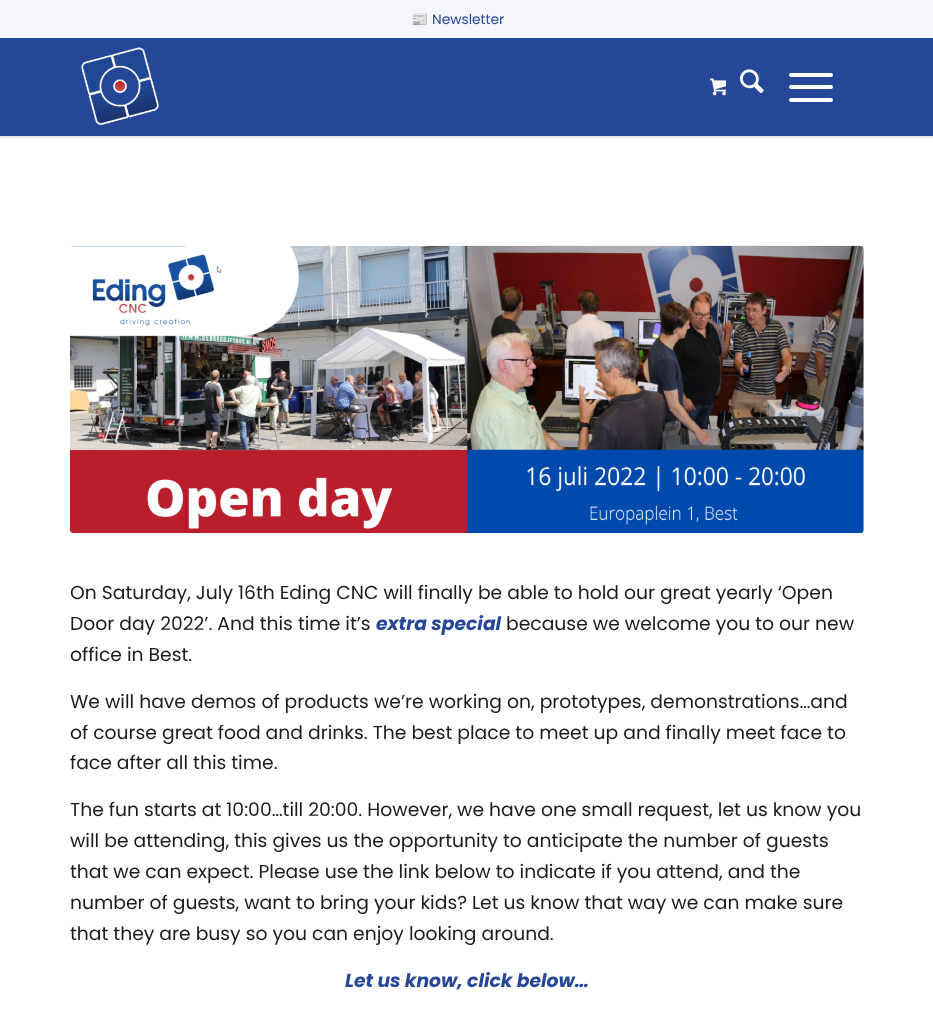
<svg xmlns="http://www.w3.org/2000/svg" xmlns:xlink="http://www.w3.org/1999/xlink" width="933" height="1011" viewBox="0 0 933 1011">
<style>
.cls-1{font:13.75px Noto Color Emoji;fill:#264697}
.cls-2{font:13.75px Poppins;fill:#264697}
.cls-3{font:18.75px Poppins;fill:#1c1c1c}
.cls-4{font:italic bold 18.75px Poppins;fill:#264697}
</style>
<rect width="100%" height="100%" fill="#ffffff"/>
<rect fill="#000000" fill-opacity="0.1" filter="blur(1px)" x="-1" y="-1" width="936" height="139"/>
<rect fill="#f4f6fc" x="0" y="0" width="933" height="38"/>
<rect fill="#264697" x="0" y="38" width="933" height="98"/>
<image xlink:href="image0.png" x="81" y="47" width="78" height="78"/>
<image xlink:href="image1.png" x="740" y="69" width="24" height="25"/>
<rect fill="#ffffff" x="789" y="85" width="44" height="4" rx="2"/>
<rect fill="#ffffff" x="789" y="73" width="44" height="4" rx="2"/>
<rect fill="#ffffff" x="789" y="98" width="44" height="4" rx="2"/>
<image xlink:href="image2.png" x="710" y="78" width="16" height="18"/>
<image xlink:href="image3.png" x="70" y="245" width="794" height="289"/>
<text class="cls-1" x="411" y="24">📰</text>
<text class="cls-2" x="432" y="24">Newsletter</text>
<text class="cls-3"><tspan x="70" y="599">On Saturday, July 16th Eding CNC will finally be able to hold our great yearly ‘Open</tspan><tspan x="70" y="630">Door day 2022’. And this time it’s</tspan></text>
<text class="cls-4" x="376" y="630">extra special</text>
<text class="cls-3" x="506" y="630">because we welcome you to our new</text>
<text class="cls-3" x="70" y="661">office in Best.</text>
<text class="cls-3"><tspan x="70" y="708">We will have demos of products we’re working on, prototypes, demonstrations…and</tspan><tspan x="70" y="739">of course great food and drinks. The best place to meet up and finally meet face to</tspan><tspan x="70" y="769">face after all this time.</tspan></text>
<text class="cls-3"><tspan x="70" y="816">The fun starts at 10:00…till 20:00. However, we have one small request, let us know you</tspan><tspan x="70" y="847">will be attending, this gives us the opportunity to anticipate the number of guests</tspan><tspan x="70" y="878">that we can expect. Please use the link below to indicate if you attend, and the</tspan><tspan x="70" y="909">number of guests, want to bring your kids? Let us know that way we can make sure</tspan><tspan x="70" y="940">that they are busy so you can enjoy looking around.</tspan></text>
<text class="cls-4" x="345" y="987">Let us know, click below…</text>
</svg>
